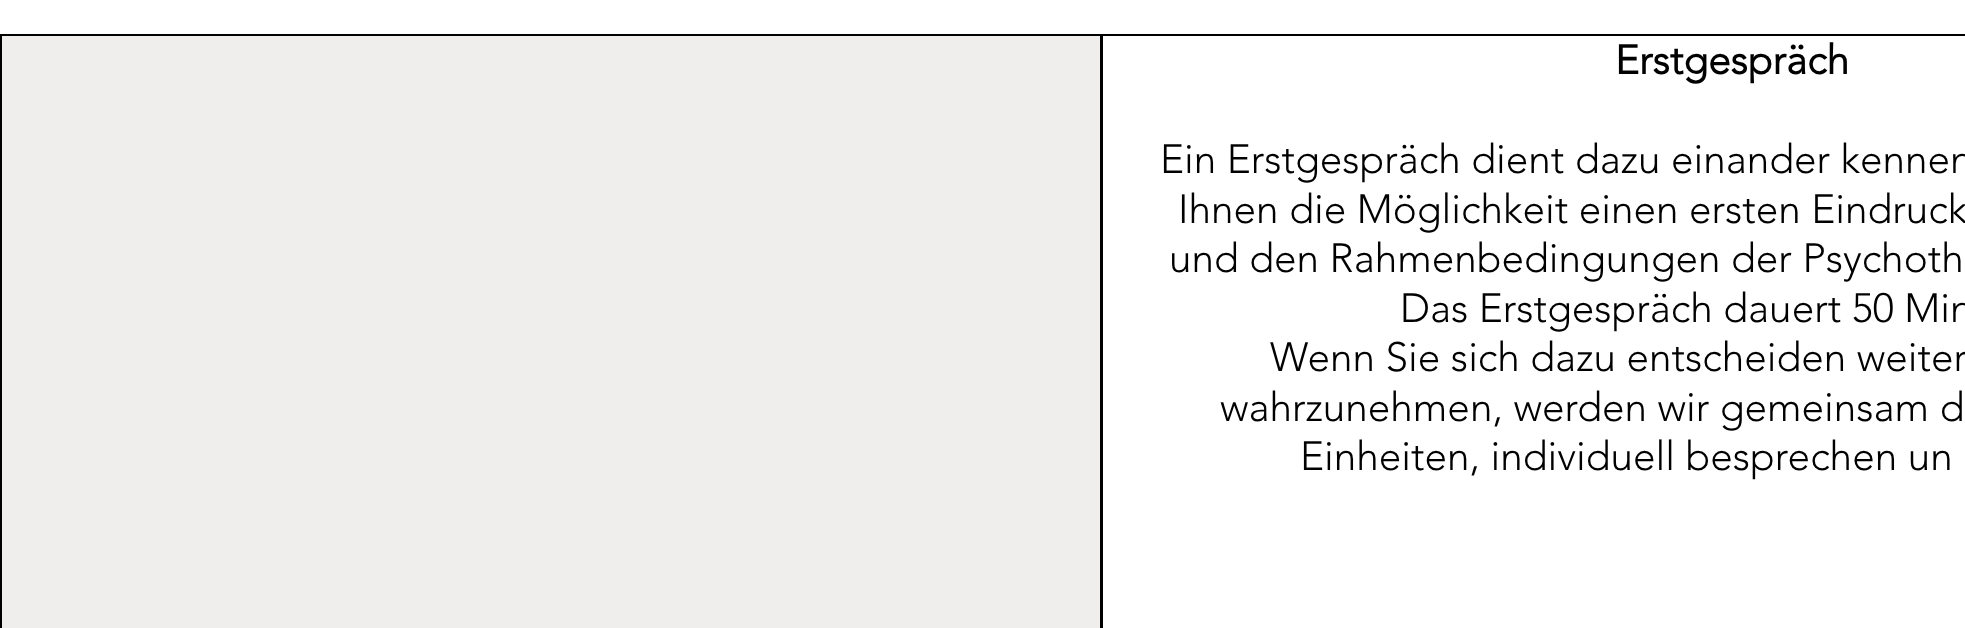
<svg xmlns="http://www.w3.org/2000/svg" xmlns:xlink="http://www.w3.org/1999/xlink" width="1965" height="628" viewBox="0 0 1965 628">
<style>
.cls-1{font:bold 40.5px 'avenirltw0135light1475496';fill:#000000}
.cls-2{font:300 40.5px 'avenirltw0135light1475496';fill:#000000}
</style>
<rect width="100%" height="100%" fill="#ffffff"/>
<rect fill="#000000" x="0" y="34" width="1965" height="594"/>
<rect fill="#f0eded" x="2" y="36" width="1098" height="592"/>
<rect fill="#ffffff" x="1103" y="36" width="862" height="592"/>
<text class="cls-1" x="1615" y="74">Erstgespräch</text>
<text class="cls-2" x="1160" y="173">Ein Erstgespräch dient dazu einander kennen</text>
<text class="cls-2" x="1178" y="223">Ihnen die Möglichkeit einen ersten Eindruck</text>
<text class="cls-2" x="1169" y="272">und den Rahmenbedingungen der Psychoth</text>
<text class="cls-2" x="1400" y="322">Das Erstgespräch dauert 50 Min</text>
<text class="cls-2" x="1270" y="371">Wenn Sie sich dazu entscheiden weiter</text>
<text class="cls-2" x="1220" y="421">wahrzunehmen, werden wir gemeinsam d</text>
<text class="cls-2" x="1300" y="470">Einheiten, individuell besprechen un</text>
</svg>
